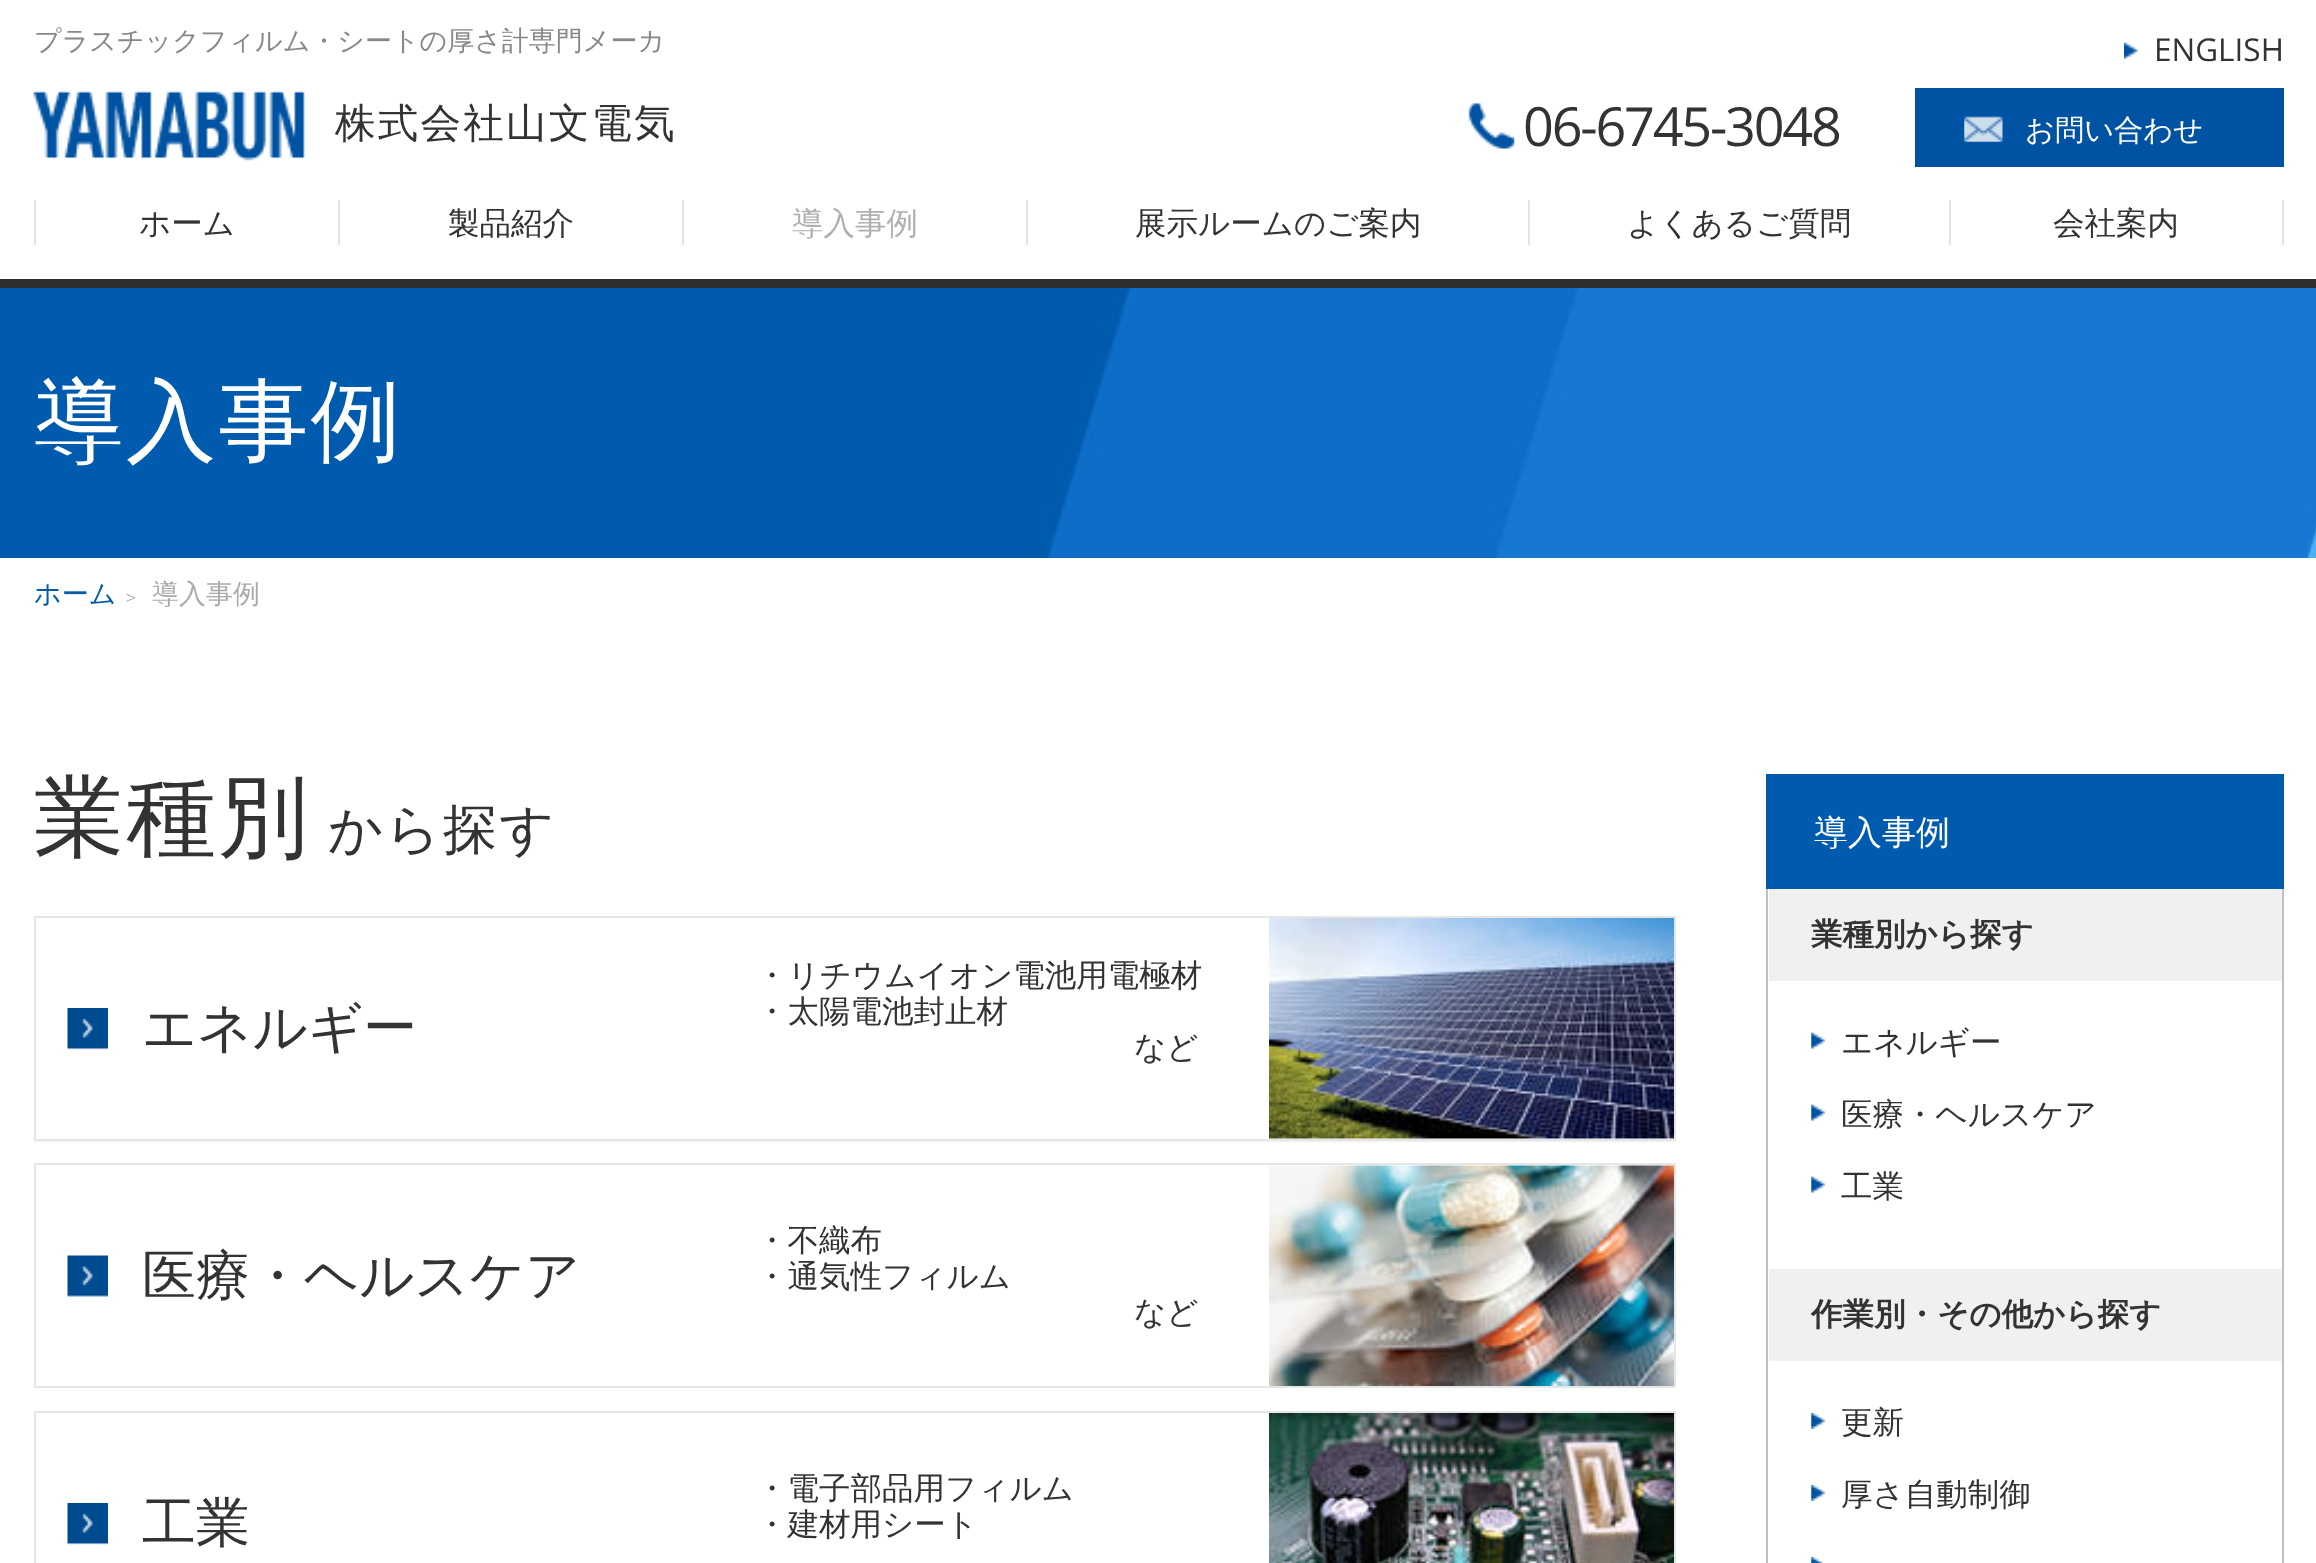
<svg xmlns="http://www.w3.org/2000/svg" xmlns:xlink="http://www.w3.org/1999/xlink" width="2316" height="1563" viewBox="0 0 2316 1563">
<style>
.cls-1{font:500 27px WenQuanYi Zen Hei;fill:#888888}
.cls-2{font:500 40.5px WenQuanYi Zen Hei;letter-spacing:2.25px;fill:#333333}
.cls-3{font:500 31.5px WenQuanYi Zen Hei;fill:#333333}
.cls-4{font:500 31.5px WenQuanYi Zen Hei;fill:#b0b0b0}
.cls-5{font:31.5px Open Sans;fill:#333333}
.cls-6{font:54px Open Sans;letter-spacing:-2.25px;fill:#333333}
.cls-7{font:500 29.25px WenQuanYi Zen Hei;fill:#ffffff}
.cls-8{font:500 90px WenQuanYi Zen Hei;letter-spacing:2.25px;fill:#ffffff}
.cls-9{font:500 27px WenQuanYi Zen Hei;fill:#065ca4}
.cls-10{font:500 18px WenQuanYi Zen Hei;fill:#aaaaaa}
.cls-11{font:500 27px WenQuanYi Zen Hei;fill:#aaaaaa}
.cls-12{font:500 90px WenQuanYi Zen Hei;letter-spacing:2.25px;fill:#333333}
.cls-13{font:500 54px WenQuanYi Zen Hei;letter-spacing:2.25px;fill:#333333}
.cls-14{font:500 54px WenQuanYi Zen Hei;fill:#333333}
.cls-15{font:500 34px WenQuanYi Zen Hei;fill:#ffffff}
.cls-16{font:bold 31.5px WenQuanYi Zen Hei;fill:#333333}
</style>
<defs>
<clipPath id="clip1"><rect x="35" y="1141" width="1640" height="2"/></clipPath>
</defs>
<rect width="100%" height="100%" fill="#ffffff"/>
<rect fill="#2e2e2e" x="0" y="279" width="2316" height="9"/>
<image xlink:href="image0.png" x="33" y="91" width="272" height="70"/>
<rect fill="#e4e4e4" x="338" y="200" width="2" height="45"/>
<rect fill="#e4e4e4" x="34" y="200" width="2" height="45"/>
<rect fill="#e4e4e4" x="682" y="200" width="2" height="45"/>
<rect fill="#e4e4e4" x="1026" y="200" width="2" height="45"/>
<rect fill="#e4e4e4" x="1528" y="200" width="2" height="45"/>
<rect fill="#e4e4e4" x="1949" y="200" width="2" height="45"/>
<rect fill="#e4e4e4" x="2282" y="200" width="2" height="45"/>
<image xlink:href="image1.png" x="2124" y="42" width="14" height="17"/>
<image xlink:href="image2.png" x="1468" y="103" width="47" height="46"/>
<rect fill="#0053a2" x="1915" y="88" width="369" height="79"/>
<image xlink:href="image3.png" x="1964" y="116" width="39" height="26"/>
<rect fill="#005baf" x="0" y="288" width="1045" height="270"/>
<image xlink:href="image4.png" x="1045" y="288" width="1271" height="270"/>
<g clip-path="url(#clip1)">
<rect fill="#d9d9d9" filter="blur(1px)" x="36" y="920" width="1638" height="221"/>
</g>
<rect fill="none" stroke="#e6e6e6" stroke-width="2" x="35" y="917" width="1640" height="223"/>
<image xlink:href="image5.png" x="67" y="1008" width="41" height="42"/>
<image xlink:href="image6.png" x="1269" y="918" width="405" height="221"/>
<rect fill="none" stroke="#e6e6e6" stroke-width="2" x="35" y="1164" width="1640" height="223"/>
<image xlink:href="image7.png" x="67" y="1255" width="41" height="42"/>
<image xlink:href="image8.png" x="1269" y="1165" width="405" height="221"/>
<rect fill="none" stroke="#e6e6e6" stroke-width="2" x="35" y="1412" width="1640" height="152"/>
<image xlink:href="image5.png" x="67" y="1503" width="41" height="42"/>
<image xlink:href="image9.png" x="1269" y="1413" width="405" height="150"/>
<rect fill="#005baf" x="1766" y="774" width="518" height="115"/>
<rect fill="#c0c0c0" x="2282" y="889" width="2" height="674"/>
<rect fill="#c0c0c0" x="1766" y="889" width="2" height="674"/>
<rect fill="#f0f0f0" x="1769" y="889" width="513" height="92"/>
<image xlink:href="image10.png" x="1811" y="1032" width="14" height="17"/>
<image xlink:href="image10.png" x="1811" y="1104" width="14" height="17"/>
<image xlink:href="image10.png" x="1811" y="1176" width="14" height="17"/>
<rect fill="#f0f0f0" x="1769" y="1269" width="513" height="92"/>
<image xlink:href="image11.png" x="1811" y="1413" width="14" height="16"/>
<image xlink:href="image11.png" x="1811" y="1485" width="14" height="16"/>
<image xlink:href="image12.png" x="1811" y="1557" width="13" height="6"/>
<text class="cls-1" x="34" y="50">プラスチックフィルム・シートの厚さ計専門メーカ</text>
<text class="cls-2" x="335" y="137">株式会社山文電気</text>
<text class="cls-3" x="139" y="234">ホーム</text>
<text class="cls-3" x="448" y="234">製品紹介</text>
<text class="cls-4" x="792" y="234">導入事例</text>
<text class="cls-3" x="1135" y="234">展示ルームのご案内</text>
<text class="cls-3" x="1627" y="234">よくあるご質問</text>
<text class="cls-3" x="2053" y="234">会社案内</text>
<text class="cls-5" x="2154" y="61">ENGLISH</text>
<text class="cls-6" x="1523" y="146">06-6745-3048</text>
<text class="cls-7" x="2025" y="140">お問い合わせ</text>
<text class="cls-8" x="34" y="452">導入事例</text>
<text class="cls-9" x="34" y="603">ホーム</text>
<text class="cls-10" x="122" y="603">＞</text>
<text class="cls-11" x="152" y="603">導入事例</text>
<text class="cls-12" x="34" y="848">業種別</text>
<text class="cls-13" x="328" y="848">から探す</text>
<text class="cls-14" x="142" y="1046">エネルギー</text>
<text class="cls-3"><tspan x="756" y="986">・リチウムイオン電池用電極材</tspan><tspan x="756" y="1022">・太陽電池封止材</tspan></text>
<text class="cls-3" x="1134" y="1058">など</text>
<text class="cls-14" x="142" y="1294">医療・ヘルスケア</text>
<text class="cls-3"><tspan x="756" y="1251">・不織布</tspan><tspan x="756" y="1287">・通気性フィルム</tspan></text>
<text class="cls-3" x="1134" y="1323">など</text>
<text class="cls-14" x="142" y="1541">工業</text>
<text class="cls-3"><tspan x="756" y="1499">・電子部品用フィルム</tspan><tspan x="756" y="1535">・建材用シート</tspan></text>
<text class="cls-15" x="1814" y="844">導入事例</text>
<text class="cls-16" x="1811" y="945">業種別から探す</text>
<text class="cls-3" x="1841" y="1053">エネルギー</text>
<text class="cls-3" x="1841" y="1125">医療・ヘルスケア</text>
<text class="cls-3" x="1841" y="1197">工業</text>
<text class="cls-16" x="1811" y="1325">作業別・その他から探す</text>
<text class="cls-3" x="1841" y="1433">更新</text>
<text class="cls-3" x="1841" y="1505">厚さ自動制御</text>
</svg>
